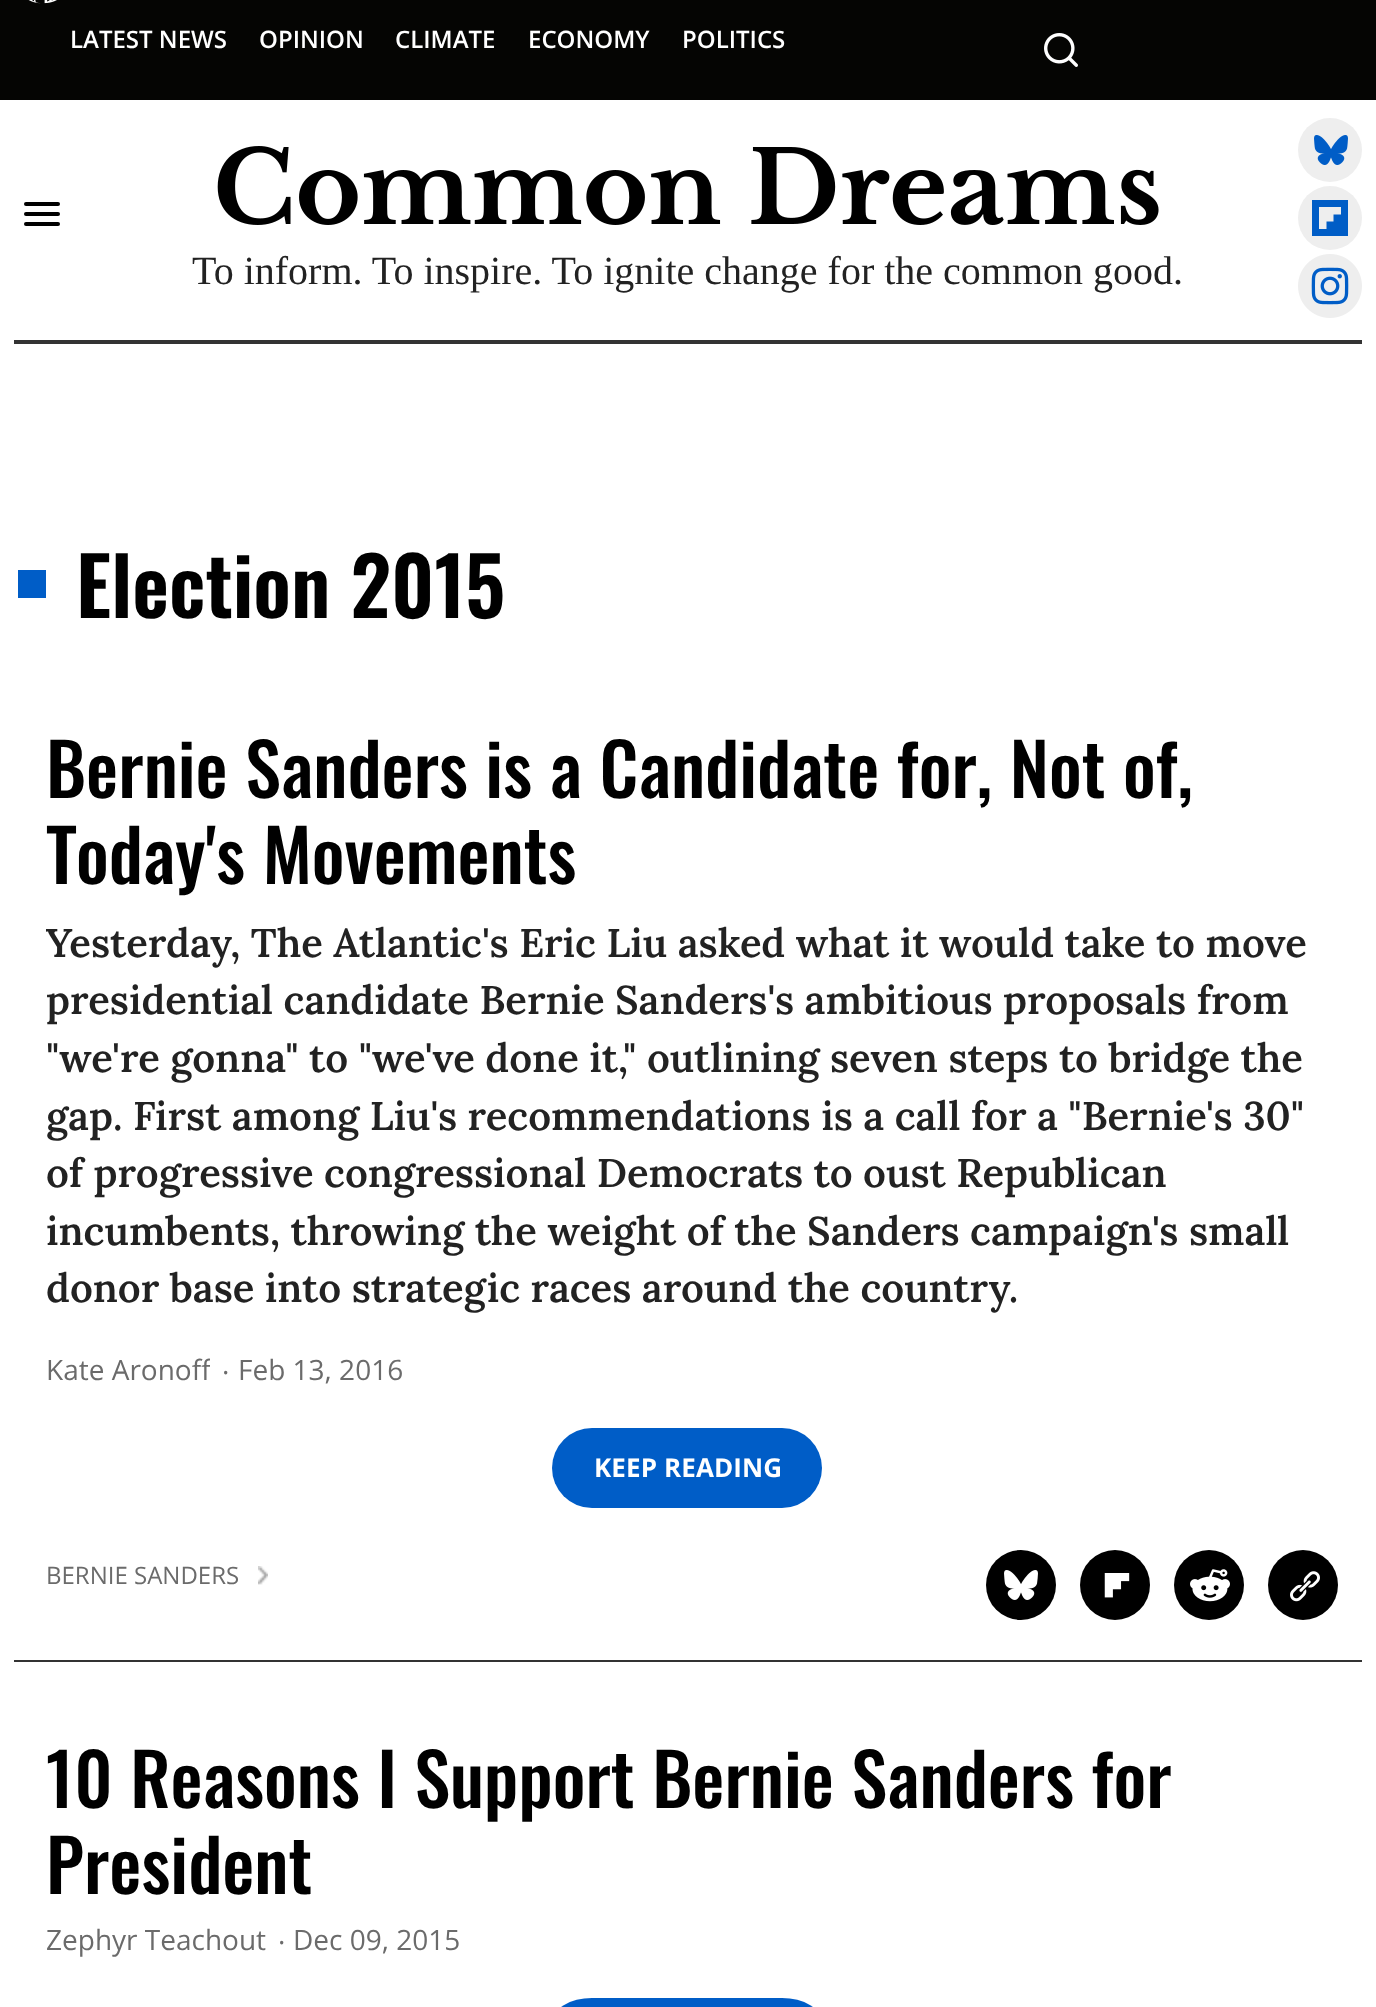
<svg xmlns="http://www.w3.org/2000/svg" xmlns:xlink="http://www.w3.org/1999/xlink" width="1376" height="2007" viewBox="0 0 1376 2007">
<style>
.cls-1{font:600 24px Open Sans;fill:#ffffff}
.cls-2{font:40px Liberation Serif;fill:#222222}
.cls-3{font:600 80px Oswald;fill:#000000}
.cls-4{font:500 72px Oswald;fill:#000000}
.cls-5{font:600 40px Lora;fill:#222222}
.cls-6{font:28px Open Sans;fill:#6b6b6b}
.cls-7{font:bold 26px Open Sans;letter-spacing:0.1px;fill:#ffffff}
.cls-8{font:24px Open Sans;fill:#6b6b6b}
</style>
<defs>
<clipPath id="clip1"><rect x="46" y="1354" width="164" height="34"/></clipPath>
</defs>
<rect width="100%" height="100%" fill="#ffffff"/>
<rect fill="#050503" x="0" y="0" width="1376" height="100"/>
<image xlink:href="image0.png" x="28" y="0" width="29" height="4"/>
<image xlink:href="image1.png" x="1044" y="33" width="34" height="34"/>
<rect fill="#333333" x="14" y="340" width="1348" height="4"/>
<rect fill="#000000" x="24" y="202" width="36" height="4" rx="2"/>
<rect fill="#000000" x="24" y="212" width="36" height="4" rx="2"/>
<rect fill="#000000" x="24" y="222" width="36" height="4" rx="2"/>
<circle fill="#eeeeee" cx="1330" cy="150" r="32"/>
<image xlink:href="image2.png" x="1314" y="135" width="34" height="30"/>
<circle fill="#eeeeee" cx="1330" cy="218" r="32"/>
<path fill="#005dc6" d="M1312 200V236H1348V200ZM1341 214.5H1333.5V221.5H1326.5V229H1319V207H1341Z"/>
<image xlink:href="image3.png" x="1298" y="254" width="64" height="64"/>
<image xlink:href="image4.png" x="217" y="146" width="942" height="79"/>
<rect fill="#005dc7" x="18" y="570" width="28" height="28"/>
<rect fill="#333333" x="14" y="1660" width="1348" height="2"/>
<rect fill="#005dc7" x="552" y="1428" width="270" height="80" rx="40"/>
<image xlink:href="image5.png" x="258" y="1566" width="10" height="19"/>
<circle fill="#000000" cx="1021" cy="1585" r="35"/>
<image xlink:href="image6.png" x="1004" y="1570" width="34" height="30"/>
<circle fill="#000000" cx="1115" cy="1585" r="35"/>
<image xlink:href="image7.png" x="1104" y="1573" width="26" height="25"/>
<circle fill="#000000" cx="1209" cy="1585" r="35"/>
<image xlink:href="image8.png" x="1190" y="1569" width="40" height="33"/>
<circle fill="#000000" cx="1303" cy="1585" r="35"/>
<image xlink:href="image9.png" x="1290" y="1571" width="30" height="31"/>
<rect fill="#005dc7" x="552" y="1998" width="270" height="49" rx="40"/>
<text class="cls-1" x="70" y="48">LATEST NEWS</text>
<text class="cls-1" x="259" y="48">OPINION</text>
<text class="cls-1" x="395" y="48">CLIMATE</text>
<text class="cls-1" x="528" y="48">ECONOMY</text>
<text class="cls-1" x="682" y="48">POLITICS</text>
<text class="cls-2" x="192" y="284">To inform. To inspire. To ignite change for the common good.</text>
<text class="cls-3" x="76" y="618">Election 2015</text>
<text class="cls-4"><tspan x="46" y="798">Bernie Sanders is a Candidate for, Not of,</tspan><tspan x="46" y="884">Today's Movements</tspan></text>
<text class="cls-5"><tspan x="46" y="957">Yesterday, The Atlantic's Eric Liu asked what it would take to move</tspan><tspan x="46" y="1014">presidential candidate Bernie Sanders's ambitious proposals from</tspan><tspan x="46" y="1072">"we're gonna" to "we've done it," outlining seven steps to bridge the</tspan><tspan x="46" y="1130">gap. First among Liu's recommendations is a call for a "Bernie's 30"</tspan><tspan x="46" y="1187">of progressive congressional Democrats to oust Republican</tspan><tspan x="46" y="1245">incumbents, throwing the weight of the Sanders campaign's small</tspan><tspan x="46" y="1302">donor base into strategic races around the country.</tspan></text>
<g clip-path="url(#clip1)">
<text class="cls-6" x="46" y="1380">Kate Aronoff</text>
</g>
<text class="cls-6" x="222" y="1374">.</text>
<text class="cls-6" x="238" y="1380">Feb 13, 2016</text>
<text class="cls-7" x="594" y="1477">KEEP READING</text>
<text class="cls-8" x="46" y="1584">BERNIE SANDERS</text>
<text class="cls-4"><tspan x="46" y="1808">10 Reasons I Support Bernie Sanders for</tspan><tspan x="46" y="1894">President</tspan></text>
<text class="cls-6" x="46" y="1950">Zephyr Teachout</text>
<text class="cls-6" x="278" y="1944">.</text>
<text class="cls-6" x="293" y="1950">Dec 09, 2015</text>
</svg>
